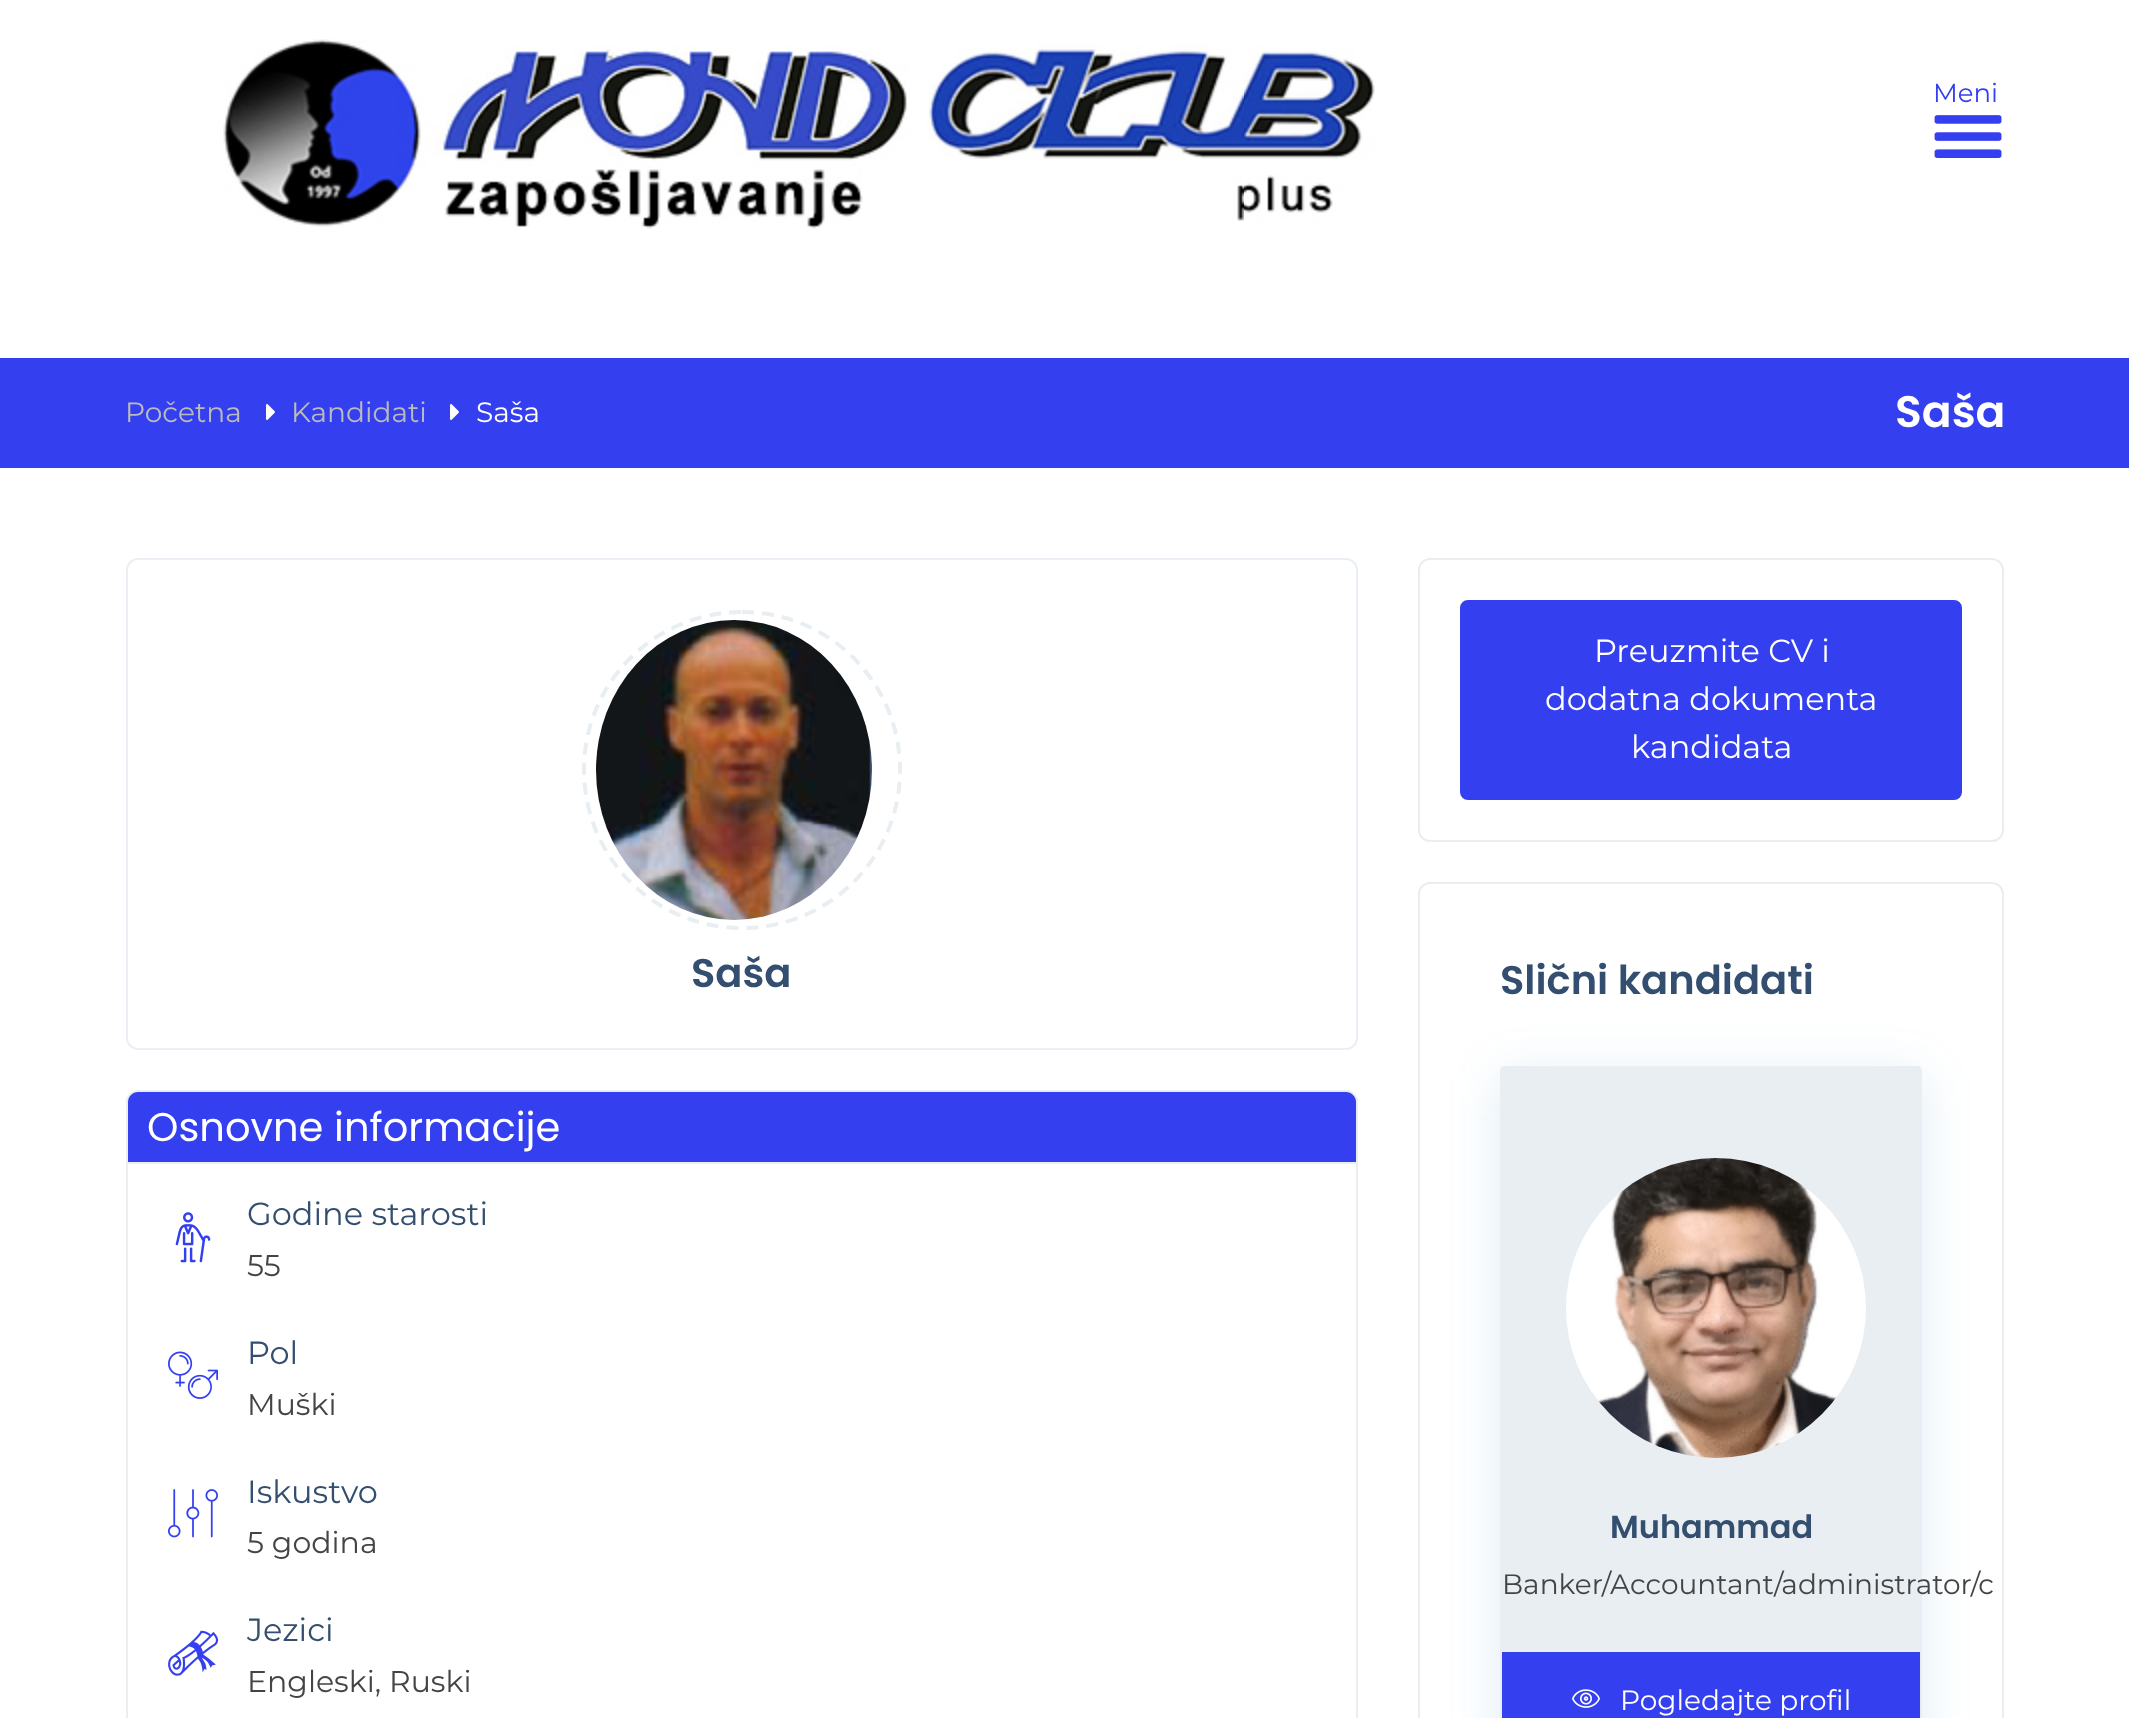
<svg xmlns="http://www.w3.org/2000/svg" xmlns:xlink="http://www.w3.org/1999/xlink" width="2129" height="1718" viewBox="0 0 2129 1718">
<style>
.cls-1{font:26px Montserrat;fill:#343ff0}
.cls-2{font:28px Montserrat;fill:#bbbbbb}
.cls-3{font:28px Montserrat;fill:#ffffff}
.cls-4{font:600 44px Poppins;fill:#ffffff}
.cls-5{font:600 40px Poppins;fill:#334e6f}
.cls-6{font:40px Poppins;fill:#ffffff}
.cls-7{font:32px Montserrat;fill:#334e6f}
.cls-8{font:30px Montserrat;fill:#444444}
.cls-9{font:32px Montserrat;fill:#ffffff}
.cls-10{font:600 32px Poppins;fill:#334e6f}
.cls-11{font:28px Montserrat;fill:#444444}
</style>
<rect width="100%" height="100%" fill="#ffffff"/>
<image xlink:href="image0.png" x="223" y="39" width="1152" height="190"/>
<image xlink:href="image1.png" x="1934" y="115" width="68" height="43"/>
<rect fill="#343ff0" x="0" y="358" width="2129" height="110"/>
<image xlink:href="image2.png" x="266" y="404" width="9" height="16"/>
<image xlink:href="image2.png" x="450" y="404" width="9" height="16"/>
<rect fill="none" stroke="#eaeff5" stroke-width="2" x="127" y="559" width="1230" height="490" rx="11"/>
<path fill="none" stroke="#e8eef1" stroke-width="4" stroke-dasharray="12 8" d="M742 612C829.5 612 900 682.5 900 770C900 857.5 829.5 928 742 928C654.5 928 584 857.5 584 770C584 682.5 654.5 612 742 612Z"/>
<image xlink:href="image3.png" x="596" y="620" width="276" height="300"/>
<rect fill="none" stroke="#e8eef1" stroke-width="2" x="127" y="1091" width="1230" height="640" rx="11"/>
<path fill="#343ff0" d="M138 1092H1346C1351.5 1092 1356 1096.5 1356 1102V1164H128V1102C128 1096.5 132.5 1092 138 1092Z"/>
<rect fill="#eaeff5" x="128" y="1162" width="1228" height="2"/>
<image xlink:href="image4.png" x="175" y="1212" width="36" height="51"/>
<image xlink:href="image5.png" x="168" y="1351" width="50" height="48"/>
<image xlink:href="image6.png" x="168" y="1489" width="50" height="49"/>
<image xlink:href="image7.png" x="168" y="1630" width="51" height="46"/>
<rect fill="none" stroke="#e8eef1" stroke-width="2" x="1419" y="559" width="584" height="282" rx="11"/>
<rect fill="#343ff0" stroke="#343ff0" stroke-width="2" x="1461" y="601" width="500" height="198" rx="7"/>
<rect fill="none" stroke="#e8eef1" stroke-width="2" x="1419" y="883" width="584" height="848" rx="11"/>
<rect fill="#2980b9" fill-opacity="0.15" filter="blur(25px)" x="1500" y="1076" width="422" height="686" rx="4"/>
<path fill="#e8eef1" d="M1504 1066H1918C1920 1066 1922 1068 1922 1070V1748C1922 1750 1920 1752 1918 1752H1504C1502 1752 1500 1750 1500 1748V1070C1500 1068 1502 1066 1504 1066Z"/>
<image xlink:href="image8.png" x="1566" y="1158" width="300" height="300"/>
<rect fill="#343ff0" x="1502" y="1652" width="418" height="66"/>
<image xlink:href="image9.png" x="1572" y="1689" width="28" height="19"/>
<text class="cls-1" x="1933" y="102">Meni</text>
<text class="cls-2" x="125" y="422">Početna</text>
<text class="cls-2" x="291" y="422">Kandidati</text>
<text class="cls-3" x="476" y="422">Saša</text>
<text class="cls-4" x="1895" y="427">Saša</text>
<text class="cls-5" x="691" y="987">Saša</text>
<text class="cls-6" x="147" y="1141">Osnovne informacije</text>
<text class="cls-7" x="247" y="1225">Godine starosti</text>
<text class="cls-8" x="247" y="1276">55</text>
<text class="cls-7" x="247" y="1364">Pol</text>
<text class="cls-8" x="247" y="1415">Muški</text>
<text class="cls-7" x="247" y="1503">Iskustvo</text>
<text class="cls-8" x="247" y="1553">5 godina</text>
<text class="cls-7" x="247" y="1641">Jezici</text>
<text class="cls-8" x="247" y="1692">Engleski, Ruski</text>
<text class="cls-9" x="1594" y="662">Preuzmite CV i</text>
<text class="cls-9" x="1545" y="710">dodatna dokumenta</text>
<text class="cls-9" x="1631" y="758">kandidata</text>
<text class="cls-5" x="1500" y="994">Slični kandidati</text>
<text class="cls-10" x="1610" y="1538">Muhammad</text>
<text class="cls-11" x="1502" y="1594">Banker/Accountant/administrator/c</text>
<text class="cls-3" x="1620" y="1710">Pogledajte profil</text>
</svg>
